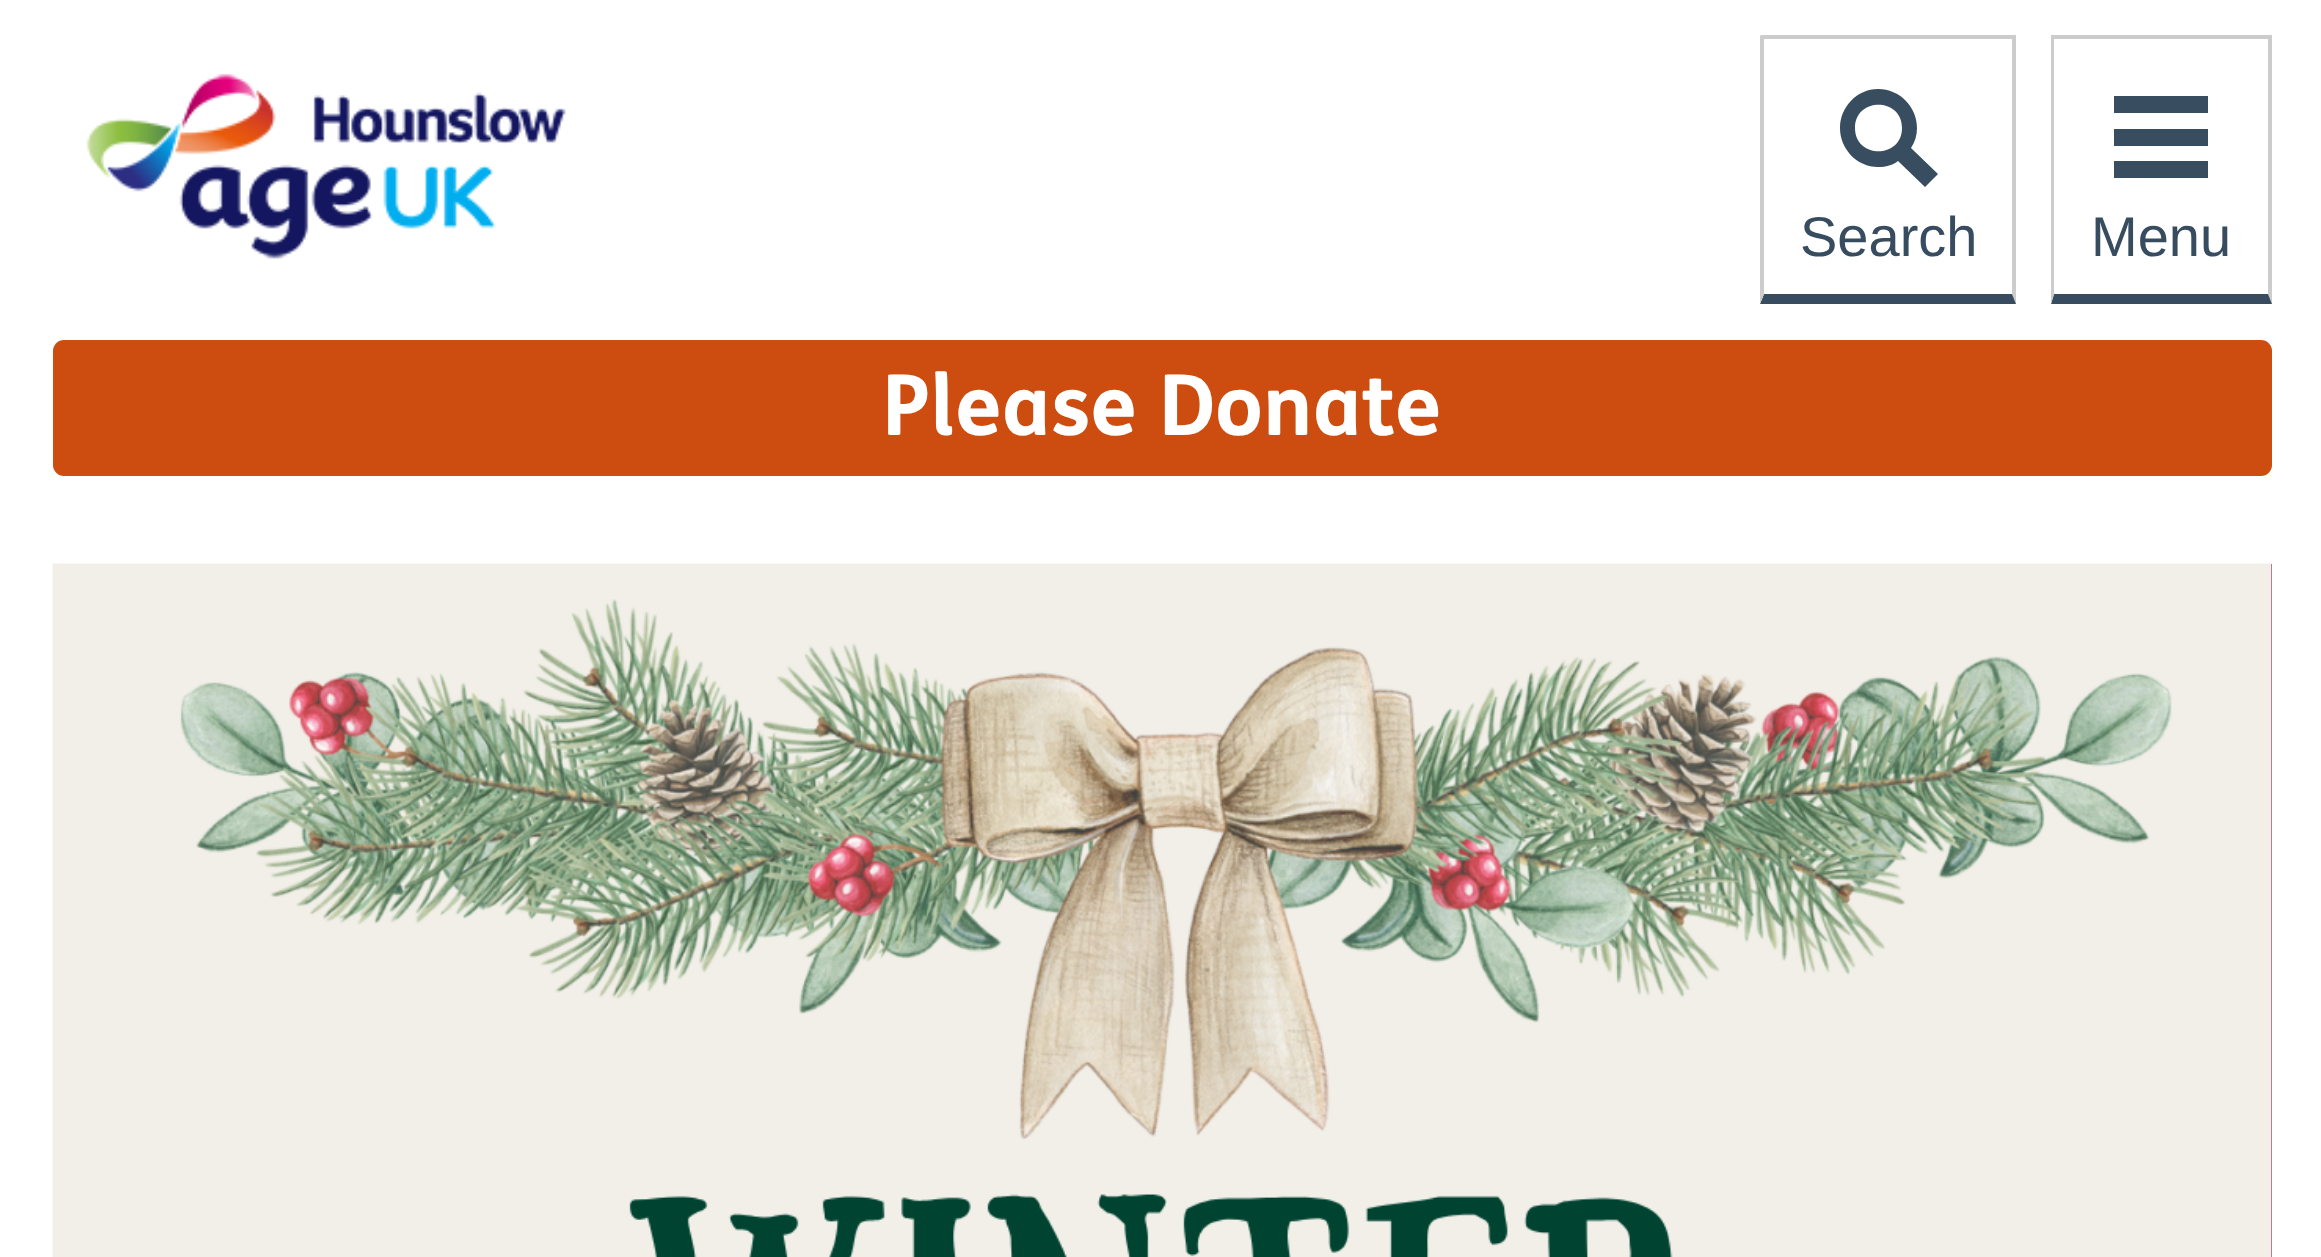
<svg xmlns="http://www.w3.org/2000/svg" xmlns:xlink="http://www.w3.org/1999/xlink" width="2321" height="1257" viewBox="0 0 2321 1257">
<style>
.cls-1{font:56px Liberation Sans;fill:#384c60}
.cls-2{font:bold 84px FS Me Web;fill:#ffffff}
</style>
<rect width="100%" height="100%" fill="#ffffff"/>
<image xlink:href="image0.png" x="86" y="73" width="480" height="186"/>
<rect fill="#cdcccc" x="1761" y="35" width="255" height="4"/>
<path fill="#cdcccc" d="M2016 35V304L2012 294V38Z"/>
<path fill="#384c60" d="M2016 304H1760L1764 294H2012Z"/>
<path fill="#cdcccc" d="M1760 304V35L1764 38V294Z"/>
<path fill="#394d61" d="M1938 174L1911 148C1915 142 1917 135 1917 128C1917 107 1900 89 1878 89C1857 89 1840 107 1840 128C1840 149 1857 167 1878 167C1886 167 1893 165 1898 161L1925 187ZM1855 128C1855 97 1902 97 1902 128C1902 159 1855 159 1855 128Z"/>
<rect fill="#cdcccc" x="2051" y="35" width="221" height="4"/>
<path fill="#cdcccc" d="M2272 35V304L2268 294V38Z"/>
<path fill="#384c60" d="M2272 304H2051L2054 294H2268Z"/>
<path fill="#cdcccc" d="M2051 304V35L2054 38V294Z"/>
<rect fill="#394d61" x="2114" y="96" width="94" height="17"/>
<rect fill="#394d61" x="2114" y="129" width="94" height="17"/>
<rect fill="#394d61" x="2114" y="161" width="94" height="17"/>
<rect fill="#cd4c10" x="53" y="340" width="2219" height="136" rx="11"/>
<rect fill="#85004f" x="2271" y="564" width="1" height="693"/>
<image xlink:href="image1.png" x="52" y="563" width="2220" height="694"/>
<text class="cls-1" x="1800" y="256">Search</text>
<text class="cls-1" x="2091" y="256">Menu</text>
<text class="cls-2" x="882" y="435">Please Donate</text>
</svg>
